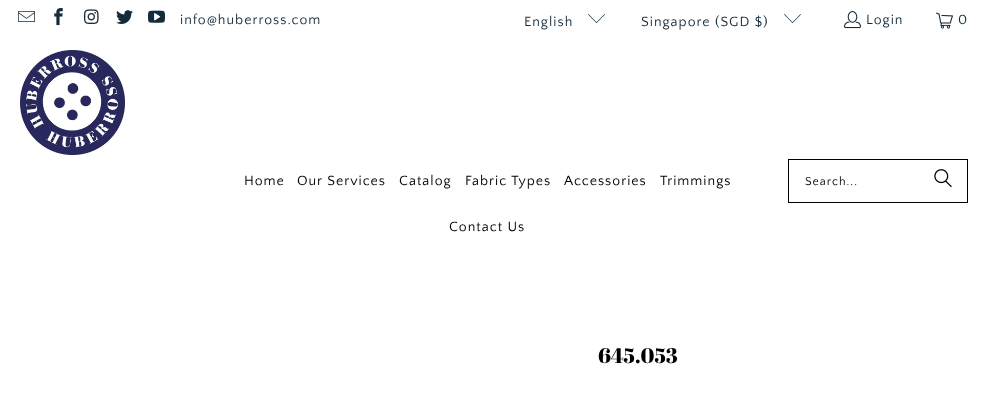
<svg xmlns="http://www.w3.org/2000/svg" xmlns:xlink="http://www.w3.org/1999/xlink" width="988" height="408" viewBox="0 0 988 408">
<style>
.cls-1{font:14px Quattrocento Sans;letter-spacing:1px;fill:#142b3b}
.cls-2{font:14px Quattrocento Sans;letter-spacing:1px;fill:#000000}
.cls-3{font:12px Quattrocento Sans;letter-spacing:1px;fill:#000000}
.cls-4{font:21px Abril Fatface;fill:#000000}
</style>
<rect width="100%" height="100%" fill="#ffffff"/>
<image xlink:href="image0.png" x="18" y="11" width="17" height="11"/>
<image xlink:href="image1.png" x="54" y="8" width="9" height="18"/>
<image xlink:href="image2.png" x="84" y="9" width="15" height="15"/>
<image xlink:href="image3.png" x="116" y="10" width="17" height="14"/>
<image xlink:href="image4.png" x="148" y="10" width="17" height="13"/>
<image xlink:href="image5.png" x="588" y="14" width="17" height="10"/>
<image xlink:href="image5.png" x="784" y="14" width="17" height="10"/>
<image xlink:href="image6.png" x="844" y="11" width="17" height="18"/>
<image xlink:href="image7.png" x="936" y="12" width="17" height="17"/>
<image xlink:href="image8.png" x="20" y="50" width="105" height="105"/>
<rect fill="none" stroke="#000000" x="788.5" y="159.5" width="179" height="43"/>
<image xlink:href="image9.png" x="934" y="169" width="18" height="19"/>
<text class="cls-1" x="180" y="24">info@huberross.com</text>
<text class="cls-1" x="524" y="26">English</text>
<text class="cls-1" x="641" y="26">Singapore (SGD $)</text>
<text class="cls-1" x="866" y="24">Login</text>
<text class="cls-1" x="958" y="24">0</text>
<text class="cls-2" x="244" y="185">Home</text>
<text class="cls-2" x="297" y="185">Our Services</text>
<text class="cls-2" x="399" y="185">Catalog</text>
<text class="cls-2" x="465" y="185">Fabric Types</text>
<text class="cls-2" x="564" y="185">Accessories</text>
<text class="cls-2" x="660" y="185">Trimmings</text>
<text class="cls-2" x="449" y="231">Contact Us</text>
<text class="cls-3" x="805" y="185">Search...</text>
<text class="cls-4" x="598" y="363">645.053</text>
</svg>
